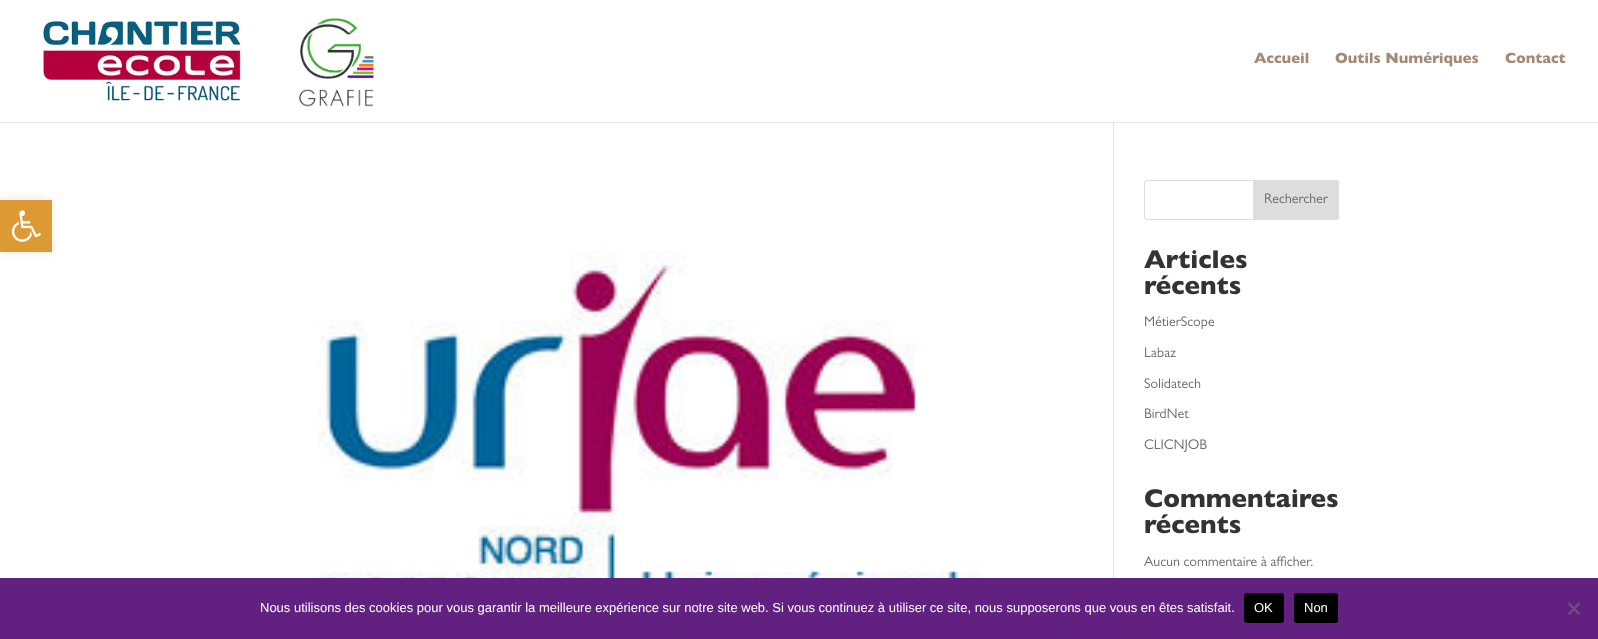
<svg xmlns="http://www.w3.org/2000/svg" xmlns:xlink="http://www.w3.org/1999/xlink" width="1598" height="639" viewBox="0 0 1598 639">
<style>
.cls-1{font:13px Liberation Sans;fill:#ffffff}
</style>
<rect width="100%" height="100%" fill="#ffffff"/>
<rect fill="#e6e6e6" x="0" y="122" width="1598" height="1"/>
<rect fill="#000000" fill-opacity="0.1" filter="blur(5px)" x="0" y="200" width="52" height="52"/>
<rect fill="#dd9933" x="0" y="200" width="52" height="52"/>
<image xlink:href="image0.png" x="11" y="210" width="30" height="32"/>
<image xlink:href="image1.png" x="43" y="17" width="332" height="90"/>
<image xlink:href="image2.png" x="1254" y="52" width="55" height="12"/>
<image xlink:href="image3.png" x="1335" y="52" width="144" height="15"/>
<image xlink:href="image4.png" x="1505" y="52" width="61" height="12"/>
<rect fill="#e2e2e2" x="1113" y="122" width="1" height="456"/>
<rect fill="#cbcbcb" x="1113" y="122" width="1" height="1"/>
<image xlink:href="image5.png" x="318" y="251" width="667" height="327"/>
<rect fill="none" stroke="#dddddd" x="1144.5" y="180.5" width="194" height="39" rx="2.5"/>
<path fill="#dddddd" stroke="#dddddd" d="M1253.5 180.5H1336C1337.5 180.5 1338.5 181.5 1338.5 183V217C1338.5 218.5 1337.5 219.5 1336 219.5H1253.5Z"/>
<image xlink:href="image6.png" x="1265" y="193" width="64" height="11"/>
<image xlink:href="image7.png" x="1144" y="250" width="103" height="19"/>
<image xlink:href="image8.png" x="1145" y="275" width="96" height="20"/>
<image xlink:href="image9.png" x="1145" y="316" width="70" height="14"/>
<image xlink:href="image10.png" x="1145" y="347" width="31" height="11"/>
<image xlink:href="image11.png" x="1144" y="378" width="57" height="11"/>
<image xlink:href="image12.png" x="1145" y="408" width="44" height="11"/>
<image xlink:href="image13.png" x="1144" y="439" width="63" height="13"/>
<image xlink:href="image14.png" x="1145" y="489" width="193" height="19"/>
<image xlink:href="image8.png" x="1145" y="514" width="96" height="20"/>
<image xlink:href="image15.png" x="1144" y="556" width="169" height="11"/>
<rect fill="#622180" x="0" y="578" width="1598" height="61"/>
<rect fill="#000000" x="1244" y="593" width="40" height="30" rx="3"/>
<rect fill="#000000" x="1294" y="593" width="44" height="30" rx="3"/>
<path fill="#715180" d="M1578.5 602.5L1580 604L1569.5 615L1568 613.5Z"/>
<path fill="#715180" d="M1568 604L1569.5 602.5L1580 613.5L1578.5 615Z"/>
<text class="cls-1" x="260" y="612">Nous utilisons des cookies pour vous garantir la meilleure expérience sur notre site web. Si vous continuez à utiliser ce site, nous supposerons que vous en êtes satisfait.</text>
<text class="cls-1" x="1254" y="612">OK</text>
<text class="cls-1" x="1304" y="612">Non</text>
</svg>
